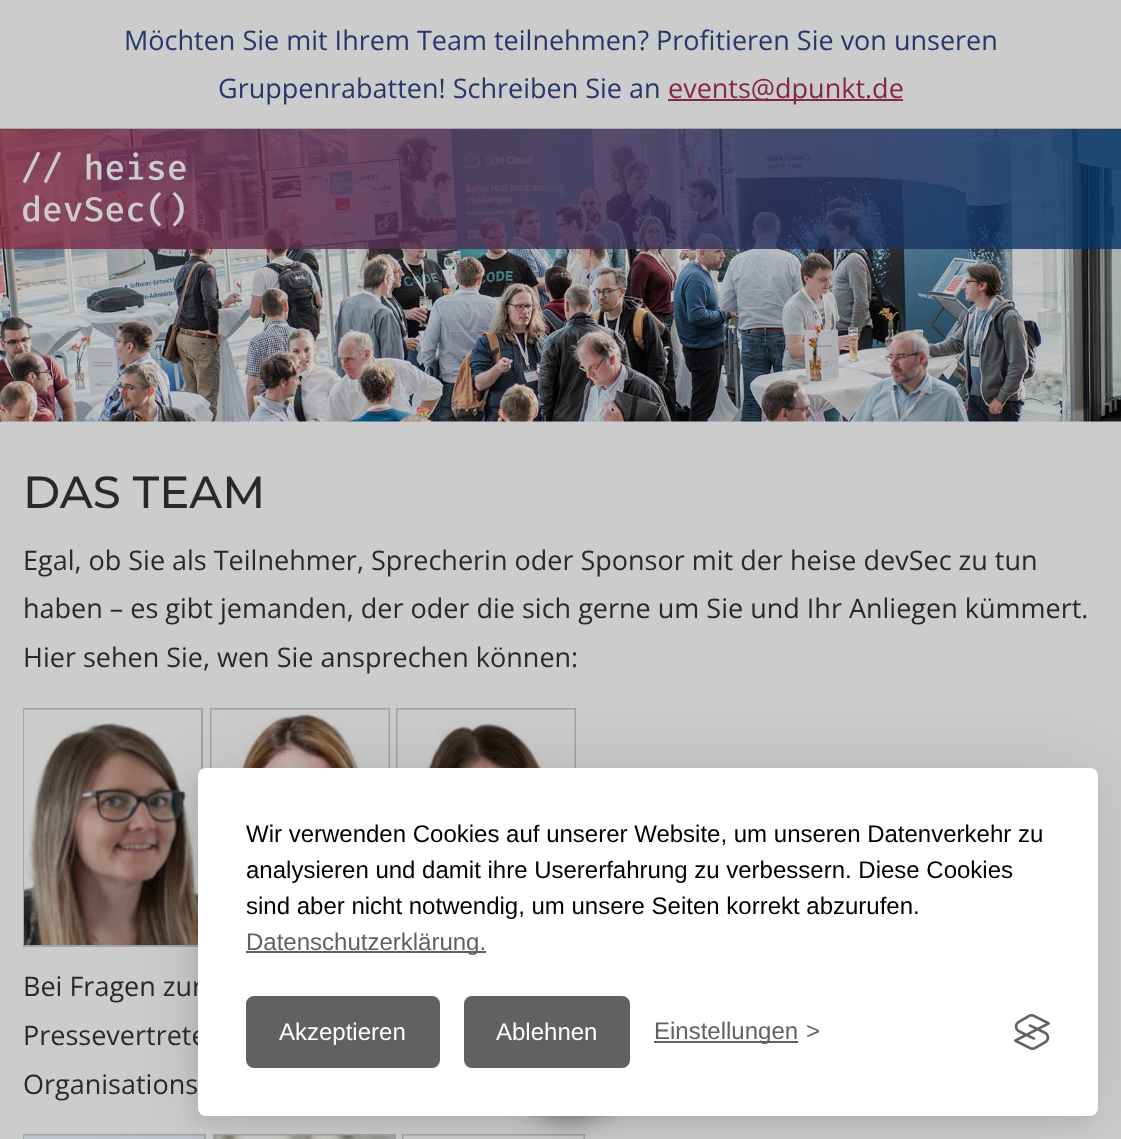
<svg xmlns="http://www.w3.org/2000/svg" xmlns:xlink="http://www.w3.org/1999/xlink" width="1121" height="1139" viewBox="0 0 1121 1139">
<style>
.cls-1{font:27px Open Sans;fill:#26376c}
.cls-2{font:27px Open Sans;fill:#842943}
.cls-3{font:500 45px Montserrat;fill:#292929}
.cls-4{font:27px Open Sans;fill:#292929}
.cls-5{font:24px Liberation Sans;fill:#000000}
.cls-6{font:24px Liberation Sans;fill:#616161}
.cls-7{font:24px Liberation Sans;fill:#ffffff}
</style>
<rect width="100%" height="100%" fill="#cccccc"/>
<rect fill="#a3a3a3" x="0" y="128" width="1121" height="1"/>
<rect fill="#842943" x="668" y="99" width="235" height="2"/>
<image xlink:href="image0.png" x="0" y="129" width="1121" height="293"/>
<image xlink:href="image1.png" x="23" y="152" width="163" height="75"/>
<rect fill="none" stroke="#a3a3a3" stroke-width="2" x="24" y="709" width="178" height="237"/>
<image xlink:href="image2.png" x="24" y="709" width="177" height="236"/>
<rect fill="none" stroke="#a3a3a3" stroke-width="2" x="211" y="709" width="178" height="237"/>
<image xlink:href="image3.png" x="211" y="709" width="178" height="59"/>
<rect fill="none" stroke="#a3a3a3" stroke-width="2" x="397" y="709" width="178" height="237"/>
<image xlink:href="image4.png" x="397" y="709" width="178" height="59"/>
<rect fill="none" stroke="#a3a3a3" stroke-width="2" x="24" y="1135" width="181" height="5"/>
<image xlink:href="image5.png" x="24" y="1135" width="180" height="4"/>
<rect fill="none" stroke="#a3a3a3" stroke-width="2" x="214" y="1135" width="181" height="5"/>
<image xlink:href="image6.png" x="214" y="1135" width="180" height="4"/>
<rect fill="none" stroke="#a3a3a3" stroke-width="2" x="403" y="1135" width="181" height="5"/>
<image xlink:href="image7.png" x="403" y="1135" width="181" height="4"/>
<rect fill="#000000" fill-opacity="0.1" filter="blur(37.5px)" x="198" y="768" width="900" height="348" rx="8"/>
<rect fill="#000000" fill-opacity="0.07" filter="blur(7.5px)" x="191" y="776" width="900" height="348" rx="8"/>
<rect fill="#000000" fill-opacity="0.5" filter="blur(15px)" x="524" y="1028" width="90" height="90" rx="45"/>
<text class="cls-1" x="124" y="50">Möchten Sie mit Ihrem Team teilnehmen? Profitieren Sie von unseren</text>
<text class="cls-1" x="218" y="98">Gruppenrabatten! Schreiben Sie an</text>
<text class="cls-2" x="668" y="98">events@dpunkt.de</text>
<text class="cls-3" x="23" y="508">DAS TEAM</text>
<text class="cls-4"><tspan x="23" y="570">Egal, ob Sie als Teilnehmer, Sprecherin oder Sponsor mit der heise devSec zu tun</tspan><tspan x="23" y="618">haben – es gibt jemanden, der oder die sich gerne um Sie und Ihr Anliegen kümmert.</tspan><tspan x="23" y="667">Hier sehen Sie, wen Sie ansprechen können:</tspan></text>
<text class="cls-4"><tspan x="23" y="996">Bei Fragen zur</tspan><tspan x="23" y="1045">Pressevertrete</tspan><tspan x="23" y="1094">Organisations</tspan></text>
<rect fill="#ffffff" x="198" y="768" width="900" height="348" rx="8"/>
<text class="cls-5"><tspan x="246" y="842">Wir verwenden Cookies auf unserer Website, um unseren Datenverkehr zu</tspan><tspan x="246" y="878">analysieren und damit ihre Usererfahrung zu verbessern. Diese Cookies</tspan><tspan x="246" y="914">sind aber nicht notwendig, um unsere Seiten korrekt abzurufen.</tspan></text>
<rect fill="#616161" x="246" y="951" width="240" height="2"/>
<text class="cls-6" x="246" y="950">Datenschutzerklärung.</text>
<rect fill="#616161" stroke="#616161" stroke-width="3" x="247.5" y="997.5" width="191" height="69" rx="6.5"/>
<text class="cls-7" x="279" y="1040">Akzeptieren</text>
<rect fill="#616161" stroke="#616161" stroke-width="3" x="465.5" y="997.5" width="163" height="69" rx="6.5"/>
<text class="cls-7" x="496" y="1040">Ablehnen</text>
<rect fill="#616161" x="654" y="1041" width="144" height="2"/>
<text class="cls-6" x="654" y="1039">Einstellungen</text>
<text class="cls-6" x="806" y="1039">&gt;</text>
<image xlink:href="image8.png" x="1014" y="1014" width="36" height="36"/>
</svg>
